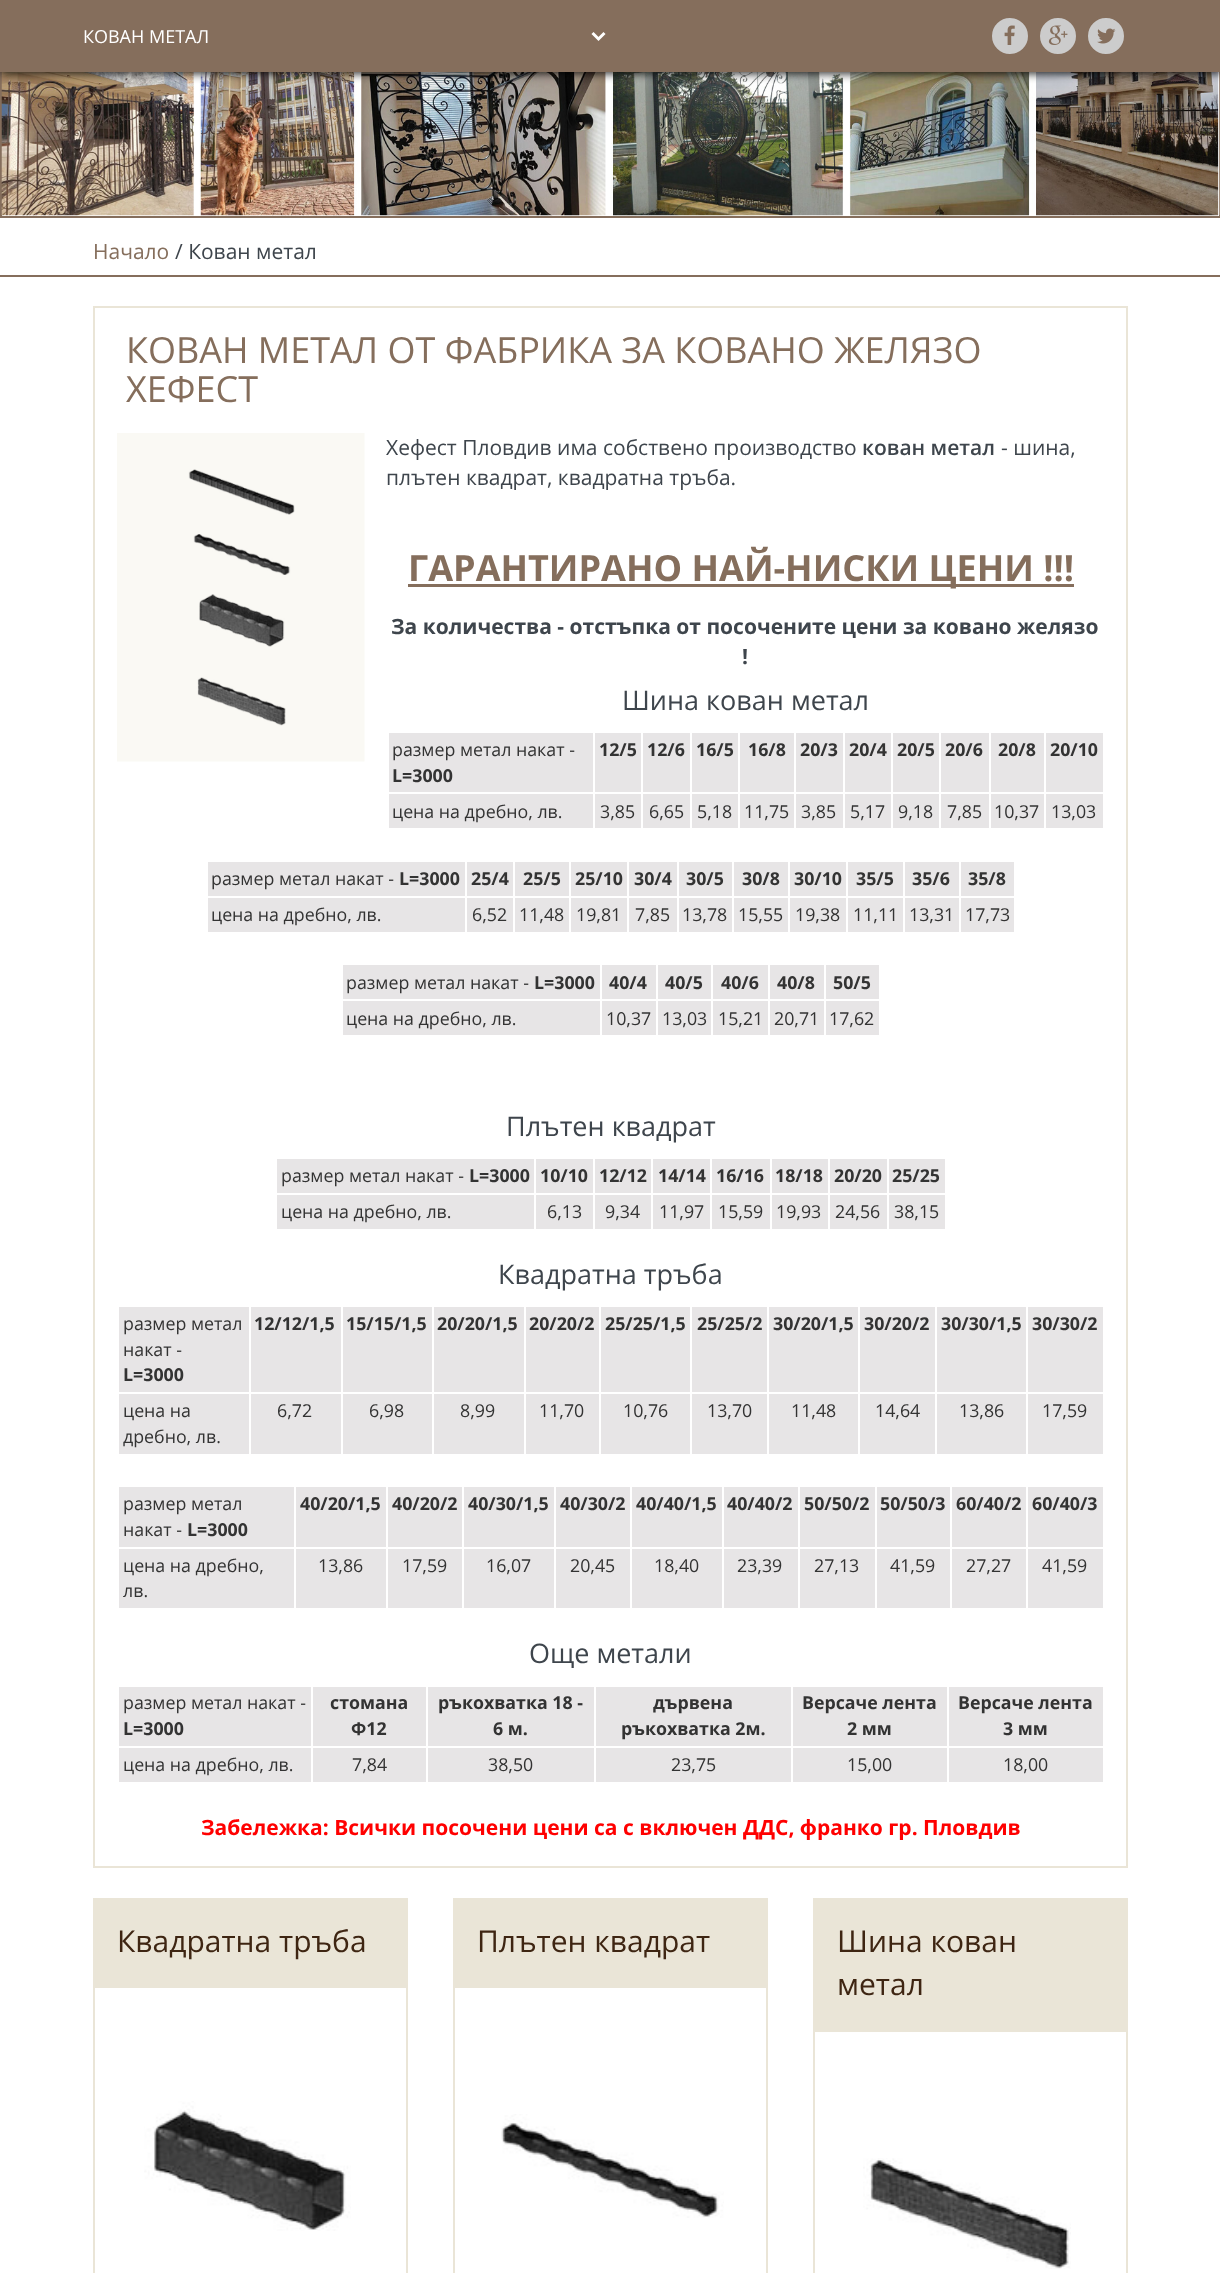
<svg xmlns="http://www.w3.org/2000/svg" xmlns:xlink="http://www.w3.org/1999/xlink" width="1220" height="2273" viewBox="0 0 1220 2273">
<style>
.cls-1{font:18px Open Sans;fill:#ffffff}
.cls-2{font:21px Open Sans;fill:#856e5c}
.cls-3{font:21px Open Sans;fill:#3e454c}
.cls-4{font:36px Open Sans;fill:#856e5c}
.cls-5{font:600 21px Open Sans;fill:#3e454c}
.cls-6{font:bold 36px Open Sans;fill:#856e5c}
.cls-7{font:bold 21px Open Sans;fill:#3e454c}
.cls-8{font:27px Open Sans;fill:#3e454c}
.cls-9{font:17.8px Open Sans;fill:#333333}
.cls-10{font:bold 17.8px Open Sans;fill:#333333}
.cls-11{font:bold 21px Open Sans;fill:#ff0000}
.cls-12{font:30px Open Sans;fill:#3e2512}
</style>
<rect width="100%" height="100%" fill="#ffffff"/>
<rect fill="none" stroke="#856e5c" stroke-width="2" x="1" y="25" width="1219" height="192"/>
<image xlink:href="image0.png" x="1" y="72" width="1219" height="144"/>
<rect fill="#000000" fill-opacity="0.8" filter="blur(4px)" x="0" y="2" width="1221" height="72"/>
<rect fill="#856e5c" x="0" y="0" width="1220" height="72"/>
<path fill="none" stroke="#ffffff" stroke-width="3" d="M592.5 33L598.5 39L604.5 33"/>
<circle fill="#cccccc" stroke="#cccccc" stroke-width="2" cx="1010" cy="36" r="17"/>
<image xlink:href="image1.png" x="1004" y="25" width="11" height="20"/>
<circle fill="#cccccc" stroke="#cccccc" stroke-width="2" cx="1058" cy="36" r="17"/>
<image xlink:href="image2.png" x="1048" y="25" width="20" height="20"/>
<circle fill="#cccccc" stroke="#cccccc" stroke-width="2" cx="1106" cy="36" r="17"/>
<image xlink:href="image3.png" x="1097" y="28" width="19" height="16"/>
<rect fill="#856e5c" x="0" y="275" width="1220" height="2"/>
<rect fill="none" stroke="#eae5d7" stroke-width="2" x="94" y="307" width="1033" height="1560"/>
<image xlink:href="image4.png" x="117" y="433" width="248" height="329"/>
<rect fill="#856e5c" x="408" y="584" width="666" height="3"/>
<rect fill="#e7e5e6" x="389" y="733" width="204" height="59"/>
<rect fill="#e7e5e6" x="595" y="733" width="46" height="59"/>
<rect fill="#e7e5e6" x="643" y="733" width="47" height="59"/>
<rect fill="#e7e5e6" x="692" y="733" width="46" height="59"/>
<rect fill="#e7e5e6" x="740" y="733" width="54" height="59"/>
<rect fill="#e7e5e6" x="796" y="733" width="47" height="59"/>
<rect fill="#e7e5e6" x="845" y="733" width="46" height="59"/>
<rect fill="#e7e5e6" x="893" y="733" width="46" height="59"/>
<rect fill="#e7e5e6" x="941" y="733" width="48" height="59"/>
<rect fill="#e7e5e6" x="991" y="733" width="53" height="59"/>
<rect fill="#e7e5e6" x="1046" y="733" width="57" height="59"/>
<rect fill="#e7e5e6" x="389" y="794" width="204" height="34"/>
<rect fill="#e7e5e6" x="595" y="794" width="46" height="34"/>
<rect fill="#e7e5e6" x="643" y="794" width="47" height="34"/>
<rect fill="#e7e5e6" x="692" y="794" width="46" height="34"/>
<rect fill="#e7e5e6" x="740" y="794" width="54" height="34"/>
<rect fill="#e7e5e6" x="796" y="794" width="47" height="34"/>
<rect fill="#e7e5e6" x="845" y="794" width="46" height="34"/>
<rect fill="#e7e5e6" x="893" y="794" width="46" height="34"/>
<rect fill="#e7e5e6" x="941" y="794" width="48" height="34"/>
<rect fill="#e7e5e6" x="991" y="794" width="53" height="34"/>
<rect fill="#e7e5e6" x="1046" y="794" width="57" height="34"/>
<rect fill="#e7e5e6" x="208" y="862" width="257" height="34"/>
<rect fill="#e7e5e6" x="467" y="862" width="46" height="34"/>
<rect fill="#e7e5e6" x="515" y="862" width="54" height="34"/>
<rect fill="#e7e5e6" x="571" y="862" width="56" height="34"/>
<rect fill="#e7e5e6" x="629" y="862" width="48" height="34"/>
<rect fill="#e7e5e6" x="679" y="862" width="53" height="34"/>
<rect fill="#e7e5e6" x="734" y="862" width="54" height="34"/>
<rect fill="#e7e5e6" x="790" y="862" width="56" height="34"/>
<rect fill="#e7e5e6" x="848" y="862" width="55" height="34"/>
<rect fill="#e7e5e6" x="905" y="862" width="54" height="34"/>
<rect fill="#e7e5e6" x="961" y="862" width="53" height="34"/>
<rect fill="#e7e5e6" x="208" y="898" width="257" height="34"/>
<rect fill="#e7e5e6" x="467" y="898" width="46" height="34"/>
<rect fill="#e7e5e6" x="515" y="898" width="54" height="34"/>
<rect fill="#e7e5e6" x="571" y="898" width="56" height="34"/>
<rect fill="#e7e5e6" x="629" y="898" width="48" height="34"/>
<rect fill="#e7e5e6" x="679" y="898" width="53" height="34"/>
<rect fill="#e7e5e6" x="734" y="898" width="54" height="34"/>
<rect fill="#e7e5e6" x="790" y="898" width="56" height="34"/>
<rect fill="#e7e5e6" x="848" y="898" width="55" height="34"/>
<rect fill="#e7e5e6" x="905" y="898" width="54" height="34"/>
<rect fill="#e7e5e6" x="961" y="898" width="53" height="34"/>
<rect fill="#e7e5e6" x="343" y="965" width="257" height="34"/>
<rect fill="#e7e5e6" x="602" y="965" width="54" height="34"/>
<rect fill="#e7e5e6" x="658" y="965" width="53" height="34"/>
<rect fill="#e7e5e6" x="713" y="965" width="55" height="34"/>
<rect fill="#e7e5e6" x="770" y="965" width="54" height="34"/>
<rect fill="#e7e5e6" x="826" y="965" width="53" height="34"/>
<rect fill="#e7e5e6" x="343" y="1001" width="257" height="34"/>
<rect fill="#e7e5e6" x="602" y="1001" width="54" height="34"/>
<rect fill="#e7e5e6" x="658" y="1001" width="53" height="34"/>
<rect fill="#e7e5e6" x="713" y="1001" width="55" height="34"/>
<rect fill="#e7e5e6" x="770" y="1001" width="54" height="34"/>
<rect fill="#e7e5e6" x="826" y="1001" width="53" height="34"/>
<rect fill="#e7e5e6" x="277" y="1159" width="257" height="34"/>
<rect fill="#e7e5e6" x="536" y="1159" width="57" height="34"/>
<rect fill="#e7e5e6" x="595" y="1159" width="56" height="34"/>
<rect fill="#e7e5e6" x="653" y="1159" width="57" height="34"/>
<rect fill="#e7e5e6" x="712" y="1159" width="58" height="34"/>
<rect fill="#e7e5e6" x="772" y="1159" width="56" height="34"/>
<rect fill="#e7e5e6" x="830" y="1159" width="57" height="34"/>
<rect fill="#e7e5e6" x="889" y="1159" width="56" height="34"/>
<rect fill="#e7e5e6" x="277" y="1195" width="257" height="34"/>
<rect fill="#e7e5e6" x="536" y="1195" width="57" height="34"/>
<rect fill="#e7e5e6" x="595" y="1195" width="56" height="34"/>
<rect fill="#e7e5e6" x="653" y="1195" width="57" height="34"/>
<rect fill="#e7e5e6" x="712" y="1195" width="58" height="34"/>
<rect fill="#e7e5e6" x="772" y="1195" width="56" height="34"/>
<rect fill="#e7e5e6" x="830" y="1195" width="57" height="34"/>
<rect fill="#e7e5e6" x="889" y="1195" width="56" height="34"/>
<rect fill="#e7e5e6" x="119" y="1307" width="130" height="85"/>
<rect fill="#e7e5e6" x="251" y="1307" width="90" height="85"/>
<rect fill="#e7e5e6" x="343" y="1307" width="89" height="85"/>
<rect fill="#e7e5e6" x="434" y="1307" width="90" height="85"/>
<rect fill="#e7e5e6" x="526" y="1307" width="73" height="85"/>
<rect fill="#e7e5e6" x="601" y="1307" width="89" height="85"/>
<rect fill="#e7e5e6" x="692" y="1307" width="75" height="85"/>
<rect fill="#e7e5e6" x="769" y="1307" width="89" height="85"/>
<rect fill="#e7e5e6" x="860" y="1307" width="75" height="85"/>
<rect fill="#e7e5e6" x="937" y="1307" width="89" height="85"/>
<rect fill="#e7e5e6" x="1028" y="1307" width="75" height="85"/>
<rect fill="#e7e5e6" x="119" y="1394" width="130" height="60"/>
<rect fill="#e7e5e6" x="251" y="1394" width="90" height="60"/>
<rect fill="#e7e5e6" x="343" y="1394" width="89" height="60"/>
<rect fill="#e7e5e6" x="434" y="1394" width="90" height="60"/>
<rect fill="#e7e5e6" x="526" y="1394" width="73" height="60"/>
<rect fill="#e7e5e6" x="601" y="1394" width="89" height="60"/>
<rect fill="#e7e5e6" x="692" y="1394" width="75" height="60"/>
<rect fill="#e7e5e6" x="769" y="1394" width="89" height="60"/>
<rect fill="#e7e5e6" x="860" y="1394" width="75" height="60"/>
<rect fill="#e7e5e6" x="937" y="1394" width="89" height="60"/>
<rect fill="#e7e5e6" x="1028" y="1394" width="75" height="60"/>
<rect fill="#e7e5e6" x="119" y="1487" width="175" height="60"/>
<rect fill="#e7e5e6" x="296" y="1487" width="90" height="60"/>
<rect fill="#e7e5e6" x="388" y="1487" width="74" height="60"/>
<rect fill="#e7e5e6" x="464" y="1487" width="90" height="60"/>
<rect fill="#e7e5e6" x="556" y="1487" width="74" height="60"/>
<rect fill="#e7e5e6" x="632" y="1487" width="90" height="60"/>
<rect fill="#e7e5e6" x="724" y="1487" width="74" height="60"/>
<rect fill="#e7e5e6" x="800" y="1487" width="75" height="60"/>
<rect fill="#e7e5e6" x="877" y="1487" width="73" height="60"/>
<rect fill="#e7e5e6" x="952" y="1487" width="74" height="60"/>
<rect fill="#e7e5e6" x="1028" y="1487" width="75" height="60"/>
<rect fill="#e7e5e6" x="119" y="1549" width="175" height="59"/>
<rect fill="#e7e5e6" x="296" y="1549" width="90" height="59"/>
<rect fill="#e7e5e6" x="388" y="1549" width="74" height="59"/>
<rect fill="#e7e5e6" x="464" y="1549" width="90" height="59"/>
<rect fill="#e7e5e6" x="556" y="1549" width="74" height="59"/>
<rect fill="#e7e5e6" x="632" y="1549" width="90" height="59"/>
<rect fill="#e7e5e6" x="724" y="1549" width="74" height="59"/>
<rect fill="#e7e5e6" x="800" y="1549" width="75" height="59"/>
<rect fill="#e7e5e6" x="877" y="1549" width="73" height="59"/>
<rect fill="#e7e5e6" x="952" y="1549" width="74" height="59"/>
<rect fill="#e7e5e6" x="1028" y="1549" width="75" height="59"/>
<rect fill="#e7e5e6" x="119" y="1687" width="192" height="59"/>
<rect fill="#e7e5e6" x="313" y="1687" width="113" height="59"/>
<rect fill="#e7e5e6" x="428" y="1687" width="166" height="59"/>
<rect fill="#e7e5e6" x="596" y="1687" width="195" height="59"/>
<rect fill="#e7e5e6" x="793" y="1687" width="154" height="59"/>
<rect fill="#e7e5e6" x="949" y="1687" width="154" height="59"/>
<rect fill="#e7e5e6" x="119" y="1748" width="192" height="34"/>
<rect fill="#e7e5e6" x="313" y="1748" width="113" height="34"/>
<rect fill="#e7e5e6" x="428" y="1748" width="166" height="34"/>
<rect fill="#e7e5e6" x="596" y="1748" width="195" height="34"/>
<rect fill="#e7e5e6" x="793" y="1748" width="154" height="34"/>
<rect fill="#e7e5e6" x="949" y="1748" width="154" height="34"/>
<rect fill="none" stroke="#eae5d7" stroke-width="2" x="94" y="1899" width="313" height="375"/>
<rect fill="#eae5d7" x="95" y="1900" width="311" height="88"/>
<image xlink:href="image5.png" x="144" y="2101" width="207" height="130"/>
<rect fill="none" stroke="#eae5d7" stroke-width="2" x="454" y="1899" width="313" height="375"/>
<rect fill="#eae5d7" x="455" y="1900" width="311" height="88"/>
<image xlink:href="image6.png" x="501" y="2114" width="223" height="104"/>
<rect fill="none" stroke="#eae5d7" stroke-width="2" x="814" y="1899" width="313" height="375"/>
<rect fill="#eae5d7" x="815" y="1900" width="311" height="130"/>
<rect fill="#eae5d7" x="815" y="2030" width="312" height="2"/>
<image xlink:href="image7.png" x="863" y="2158" width="208" height="111"/>
<text class="cls-1" x="83" y="43">КОВАН МЕТАЛ</text>
<text class="cls-2" x="93" y="259">Начало</text>
<text class="cls-3" x="175" y="259">/ Кован метал</text>
<text class="cls-4"><tspan x="126" y="363">КОВАН МЕТАЛ ОТ ФАБРИКА ЗА КОВАНО ЖЕЛЯЗО</tspan><tspan x="126" y="402">ХЕФЕСТ</tspan></text>
<text class="cls-3" x="386" y="455">Хефест Пловдив има собствено производство</text>
<text class="cls-5" x="862" y="455">кован метал</text>
<text class="cls-3" x="1001" y="455">- шина,</text>
<text class="cls-3" x="386" y="485">плътен квадрат, квадратна тръба.</text>
<text class="cls-6" x="408" y="581">ГАРАНТИРАНО НАЙ-НИСКИ ЦЕНИ !!!</text>
<text class="cls-7" x="391" y="634">За количества - отстъпка от посочените цени за ковано желязо</text>
<text class="cls-7" x="742" y="664">!</text>
<text class="cls-8" x="622" y="710">Шина кован метал</text>
<text class="cls-9" x="392" y="756">размер метал накат -</text>
<text class="cls-10" x="392" y="782">L=3000</text>
<text class="cls-10" x="599" y="756">12/5</text>
<text class="cls-10" x="647" y="756">12/6</text>
<text class="cls-10" x="696" y="756">16/5</text>
<text class="cls-10" x="748" y="756">16/8</text>
<text class="cls-10" x="800" y="756">20/3</text>
<text class="cls-10" x="849" y="756">20/4</text>
<text class="cls-10" x="897" y="756">20/5</text>
<text class="cls-10" x="945" y="756">20/6</text>
<text class="cls-10" x="998" y="756">20/8</text>
<text class="cls-10" x="1050" y="756">20/10</text>
<text class="cls-9" x="392" y="818">цена на дребно, лв.</text>
<text class="cls-9" x="600" y="818">3,85</text>
<text class="cls-9" x="649" y="818">6,65</text>
<text class="cls-9" x="697" y="818">5,18</text>
<text class="cls-9" x="744" y="818">11,75</text>
<text class="cls-9" x="801" y="818">3,85</text>
<text class="cls-9" x="850" y="818">5,17</text>
<text class="cls-9" x="898" y="818">9,18</text>
<text class="cls-9" x="947" y="818">7,85</text>
<text class="cls-9" x="994" y="818">10,37</text>
<text class="cls-9" x="1051" y="818">13,03</text>
<text class="cls-9" x="211" y="885">размер метал накат -</text>
<text class="cls-10" x="399" y="885">L=3000</text>
<text class="cls-10" x="471" y="885">25/4</text>
<text class="cls-10" x="523" y="885">25/5</text>
<text class="cls-10" x="575" y="885">25/10</text>
<text class="cls-10" x="634" y="885">30/4</text>
<text class="cls-10" x="686" y="885">30/5</text>
<text class="cls-10" x="742" y="885">30/8</text>
<text class="cls-10" x="794" y="885">30/10</text>
<text class="cls-10" x="856" y="885">35/5</text>
<text class="cls-10" x="912" y="885">35/6</text>
<text class="cls-10" x="968" y="885">35/8</text>
<text class="cls-9" x="211" y="921">цена на дребно, лв.</text>
<text class="cls-9" x="472" y="921">6,52</text>
<text class="cls-9" x="519" y="921">11,48</text>
<text class="cls-9" x="576" y="921">19,81</text>
<text class="cls-9" x="635" y="921">7,85</text>
<text class="cls-9" x="682" y="921">13,78</text>
<text class="cls-9" x="738" y="921">15,55</text>
<text class="cls-9" x="795" y="921">19,38</text>
<text class="cls-9" x="853" y="921">11,11</text>
<text class="cls-9" x="909" y="921">13,31</text>
<text class="cls-9" x="965" y="921">17,73</text>
<text class="cls-9" x="346" y="989">размер метал накат -</text>
<text class="cls-10" x="534" y="989">L=3000</text>
<text class="cls-10" x="609" y="989">40/4</text>
<text class="cls-10" x="665" y="989">40/5</text>
<text class="cls-10" x="721" y="989">40/6</text>
<text class="cls-10" x="777" y="989">40/8</text>
<text class="cls-10" x="833" y="989">50/5</text>
<text class="cls-9" x="346" y="1025">цена на дребно, лв.</text>
<text class="cls-9" x="606" y="1025">10,37</text>
<text class="cls-9" x="662" y="1025">13,03</text>
<text class="cls-9" x="718" y="1025">15,21</text>
<text class="cls-9" x="774" y="1025">20,71</text>
<text class="cls-9" x="829" y="1025">17,62</text>
<text class="cls-8" x="506" y="1136">Плътен квадрат</text>
<text class="cls-9" x="281" y="1182">размер метал накат -</text>
<text class="cls-10" x="469" y="1182">L=3000</text>
<text class="cls-10" x="540" y="1182">10/10</text>
<text class="cls-10" x="599" y="1182">12/12</text>
<text class="cls-10" x="658" y="1182">14/14</text>
<text class="cls-10" x="716" y="1182">16/16</text>
<text class="cls-10" x="775" y="1182">18/18</text>
<text class="cls-10" x="834" y="1182">20/20</text>
<text class="cls-10" x="892" y="1182">25/25</text>
<text class="cls-9" x="281" y="1218">цена на дребно, лв.</text>
<text class="cls-9" x="547" y="1218">6,13</text>
<text class="cls-9" x="605" y="1218">9,34</text>
<text class="cls-9" x="659" y="1218">11,97</text>
<text class="cls-9" x="718" y="1218">15,59</text>
<text class="cls-9" x="776" y="1218">19,93</text>
<text class="cls-9" x="835" y="1218">24,56</text>
<text class="cls-9" x="894" y="1218">38,15</text>
<text class="cls-8" x="498" y="1284">Квадратна тръба</text>
<text class="cls-9"><tspan x="123" y="1330">размер метал</tspan><tspan x="123" y="1356">накат -</tspan></text>
<text class="cls-10" x="123" y="1381">L=3000</text>
<text class="cls-10" x="254" y="1330">12/12/1,5</text>
<text class="cls-10" x="346" y="1330">15/15/1,5</text>
<text class="cls-10" x="437" y="1330">20/20/1,5</text>
<text class="cls-10" x="529" y="1330">20/20/2</text>
<text class="cls-10" x="605" y="1330">25/25/1,5</text>
<text class="cls-10" x="697" y="1330">25/25/2</text>
<text class="cls-10" x="773" y="1330">30/20/1,5</text>
<text class="cls-10" x="864" y="1330">30/20/2</text>
<text class="cls-10" x="941" y="1330">30/30/1,5</text>
<text class="cls-10" x="1032" y="1330">30/30/2</text>
<text class="cls-9"><tspan x="123" y="1417">цена на</tspan><tspan x="123" y="1443">дребно, лв.</tspan></text>
<text class="cls-9" x="277" y="1417">6,72</text>
<text class="cls-9" x="369" y="1417">6,98</text>
<text class="cls-9" x="460" y="1417">8,99</text>
<text class="cls-9" x="539" y="1417">11,70</text>
<text class="cls-9" x="623" y="1417">10,76</text>
<text class="cls-9" x="707" y="1417">13,70</text>
<text class="cls-9" x="791" y="1417">11,48</text>
<text class="cls-9" x="875" y="1417">14,64</text>
<text class="cls-9" x="959" y="1417">13,86</text>
<text class="cls-9" x="1042" y="1417">17,59</text>
<text class="cls-9"><tspan x="123" y="1510">размер метал</tspan><tspan x="123" y="1536">накат -</tspan></text>
<text class="cls-10" x="187" y="1536">L=3000</text>
<text class="cls-10" x="300" y="1510">40/20/1,5</text>
<text class="cls-10" x="392" y="1510">40/20/2</text>
<text class="cls-10" x="468" y="1510">40/30/1,5</text>
<text class="cls-10" x="560" y="1510">40/30/2</text>
<text class="cls-10" x="636" y="1510">40/40/1,5</text>
<text class="cls-10" x="727" y="1510">40/40/2</text>
<text class="cls-10" x="804" y="1510">50/50/2</text>
<text class="cls-10" x="880" y="1510">50/50/3</text>
<text class="cls-10" x="956" y="1510">60/40/2</text>
<text class="cls-10" x="1032" y="1510">60/40/3</text>
<text class="cls-9"><tspan x="123" y="1572">цена на дребно,</tspan><tspan x="123" y="1597">лв.</tspan></text>
<text class="cls-9" x="318" y="1572">13,86</text>
<text class="cls-9" x="402" y="1572">17,59</text>
<text class="cls-9" x="486" y="1572">16,07</text>
<text class="cls-9" x="570" y="1572">20,45</text>
<text class="cls-9" x="654" y="1572">18,40</text>
<text class="cls-9" x="737" y="1572">23,39</text>
<text class="cls-9" x="814" y="1572">27,13</text>
<text class="cls-9" x="890" y="1572">41,59</text>
<text class="cls-9" x="966" y="1572">27,27</text>
<text class="cls-9" x="1042" y="1572">41,59</text>
<text class="cls-8" x="529" y="1663">Още метали</text>
<text class="cls-9" x="123" y="1709">размер метал накат -</text>
<text class="cls-10" x="123" y="1735">L=3000</text>
<text class="cls-10" x="330" y="1709">стомана</text>
<text class="cls-10" x="351" y="1735">Ф12</text>
<text class="cls-10" x="438" y="1709">ръкохватка 18 -</text>
<text class="cls-10" x="493" y="1735">6 м.</text>
<text class="cls-10" x="653" y="1709">дървена</text>
<text class="cls-10" x="621" y="1735">ръкохватка 2м.</text>
<text class="cls-10" x="802" y="1709">Версаче лента</text>
<text class="cls-10" x="847" y="1735">2 мм</text>
<text class="cls-10" x="958" y="1709">Версаче лента</text>
<text class="cls-10" x="1003" y="1735">3 мм</text>
<text class="cls-9" x="123" y="1771">цена на дребно, лв.</text>
<text class="cls-9" x="352" y="1771">7,84</text>
<text class="cls-9" x="488" y="1771">38,50</text>
<text class="cls-9" x="671" y="1771">23,75</text>
<text class="cls-9" x="847" y="1771">15,00</text>
<text class="cls-9" x="1003" y="1771">18,00</text>
<text class="cls-11" x="201" y="1835">Забележка: Всички посочени цени са с включен ДДС, франко гр. Пловдив</text>
<text class="cls-12" x="117" y="1952">Квадратна тръба</text>
<text class="cls-12" x="477" y="1952">Плътен квадрат</text>
<text class="cls-12"><tspan x="837" y="1952">Шина кован</tspan><tspan x="837" y="1995">метал</tspan></text>
</svg>
